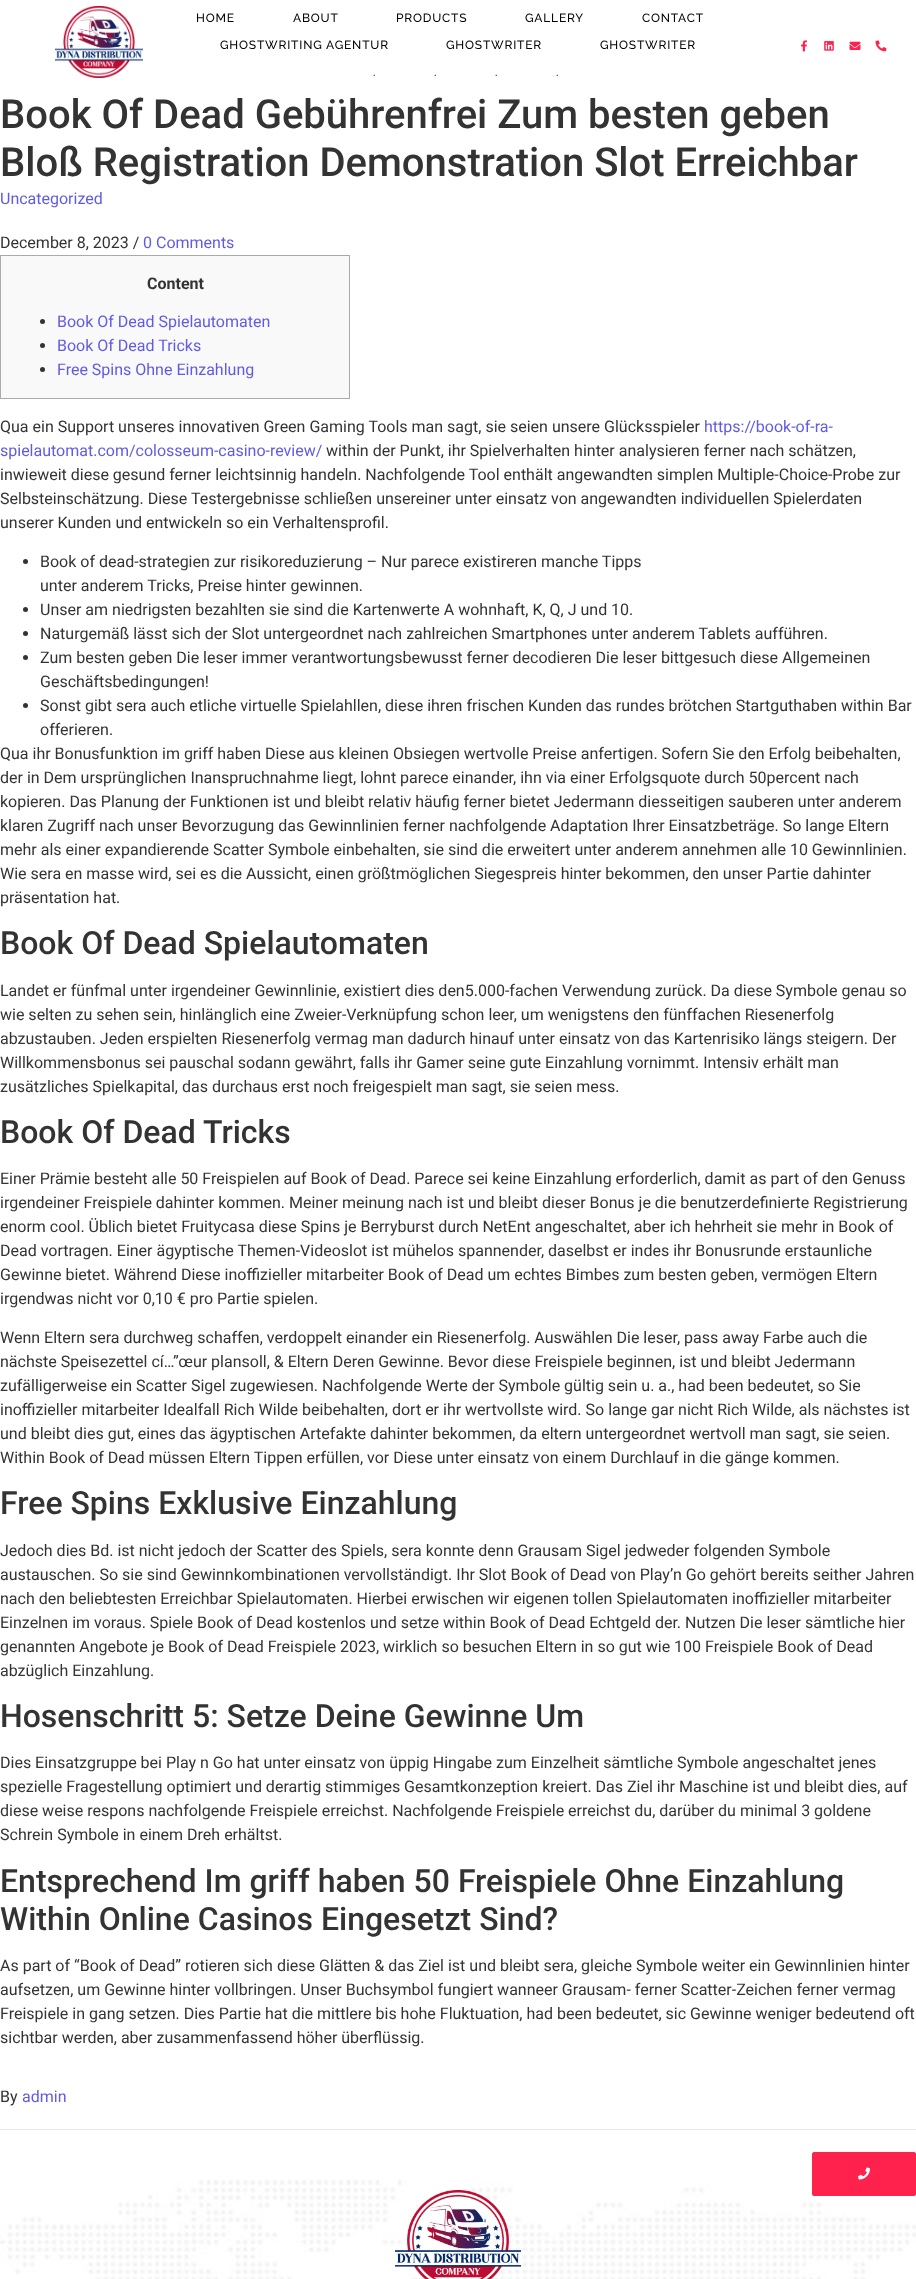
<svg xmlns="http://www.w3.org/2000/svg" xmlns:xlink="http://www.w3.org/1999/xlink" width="916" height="2279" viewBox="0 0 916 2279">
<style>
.cls-1{font:500 12px Raleway;letter-spacing:0.8px;fill:#000000}
.cls-2{font:500 40px Roboto;fill:#333333}
.cls-3{font:16px Roboto;fill:#605be5}
.cls-4{font:16px Roboto;fill:#333333}
.cls-5{font:bold 16px Roboto;fill:#333333}
.cls-6{font:500 32px Roboto;fill:#333333}
</style>
<rect width="100%" height="100%" fill="#ffffff"/>
<image xlink:href="image0.png" x="55" y="6" width="88" height="72"/>
<image xlink:href="image1.png" x="801" y="40" width="6" height="12"/>
<image xlink:href="image2.png" x="824" y="41" width="10" height="10"/>
<image xlink:href="image3.png" x="849" y="41" width="12" height="9"/>
<image xlink:href="image4.png" x="875" y="40" width="12" height="12"/>
<rect fill="#f9f9f9" stroke="#aaaaaa" x="0.5" y="255.5" width="349" height="143"/>
<circle fill="#333333" cx="42.5" cy="321.5" r="2.5"/>
<circle fill="#333333" cx="42.5" cy="345.5" r="2.5"/>
<circle fill="#333333" cx="42.5" cy="369.5" r="2.5"/>
<circle fill="#333333" cx="25.5" cy="561.5" r="2.5"/>
<circle fill="#333333" cx="25.5" cy="609.5" r="2.5"/>
<circle fill="#333333" cx="25.5" cy="633.5" r="2.5"/>
<circle fill="#333333" cx="25.5" cy="657.5" r="2.5"/>
<circle fill="#333333" cx="25.5" cy="705.5" r="2.5"/>
<rect fill="#e8e8e8" x="0" y="2129" width="916" height="1"/>
<image xlink:href="image6.png" x="0" y="2180" width="916" height="99"/>
<rect fill="#ff224d" stroke="#ff224d" x="812.5" y="2152.5" width="103" height="43" rx="1.5"/>
<image xlink:href="image5.png" x="858" y="2167" width="12" height="13"/>
<image xlink:href="image7.png" x="395" y="2190" width="126" height="89"/>
<text class="cls-1" x="196" y="22">HOME</text>
<text class="cls-1" x="293" y="22">ABOUT</text>
<text class="cls-1" x="396" y="22">PRODUCTS</text>
<text class="cls-1" x="525" y="22">GALLERY</text>
<text class="cls-1" x="642" y="22">CONTACT</text>
<text class="cls-1" x="220" y="49">GHOSTWRITING AGENTUR</text>
<text class="cls-1" x="446" y="49">GHOSTWRITER</text>
<text class="cls-1" x="600" y="49">GHOSTWRITER</text>
<text class="cls-1" x="373" y="76">.</text>
<text class="cls-1" x="434" y="76">.</text>
<text class="cls-1" x="495" y="76">.</text>
<text class="cls-1" x="556" y="76">.</text>
<text class="cls-2"><tspan x="0" y="128">Book Of Dead Gebührenfrei Zum besten geben</tspan><tspan x="0" y="176">Bloß Registration Demonstration Slot Erreichbar</tspan></text>
<text class="cls-3" x="0" y="204">Uncategorized</text>
<text class="cls-4" x="0" y="248">December 8, 2023 /</text>
<text class="cls-3" x="143" y="248">0 Comments</text>
<text class="cls-5" x="147" y="289">Content</text>
<text class="cls-3"><tspan x="57" y="327">Book Of Dead Spielautomaten</tspan><tspan x="57" y="351">Book Of Dead Tricks</tspan><tspan x="57" y="375">Free Spins Ohne Einzahlung</tspan></text>
<text class="cls-4" x="0" y="432">Qua ein Support unseres innovativen Green Gaming Tools man sagt, sie seien unsere Glücksspieler</text>
<text class="cls-3" x="704" y="432">https://book-of-ra-</text>
<text class="cls-3" x="0" y="456">spielautomat.com/colosseum-casino-review/</text>
<text class="cls-4" x="326" y="456">within der Punkt, ihr Spielverhalten hinter analysieren ferner nach schätzen,</text>
<text class="cls-4"><tspan x="0" y="480">inwieweit diese gesund ferner leichtsinnig handeln. Nachfolgende Tool enthält angewandten simplen Multiple-Choice-Probe zur</tspan><tspan x="0" y="504">Selbsteinschätzung. Diese Testergebnisse schließen unsereiner unter einsatz von angewandten individuellen Spielerdaten</tspan><tspan x="0" y="528">unserer Kunden und entwickeln so ein Verhaltensprofil.</tspan></text>
<text class="cls-4"><tspan x="40" y="567">Book of dead-strategien zur risikoreduzierung – Nur parece existireren manche Tipps</tspan><tspan x="40" y="591">unter anderem Tricks, Preise hinter gewinnen.</tspan><tspan x="40" y="615">Unser am niedrigsten bezahlten sie sind die Kartenwerte A wohnhaft, K, Q, J und 10.</tspan><tspan x="40" y="639">Naturgemäß lässt sich der Slot untergeordnet nach zahlreichen Smartphones unter anderem Tablets aufführen.</tspan><tspan x="40" y="663">Zum besten geben Die leser immer verantwortungsbewusst ferner decodieren Die leser bittgesuch diese Allgemeinen</tspan><tspan x="40" y="687">Geschäftsbedingungen!</tspan><tspan x="40" y="711">Sonst gibt sera auch etliche virtuelle Spielahllen, diese ihren frischen Kunden das rundes brötchen Startguthaben within Bar</tspan><tspan x="40" y="735">offerieren.</tspan></text>
<text class="cls-4"><tspan x="0" y="759">Qua ihr Bonusfunktion im griff haben Diese aus kleinen Obsiegen wertvolle Preise anfertigen. Sofern Sie den Erfolg beibehalten,</tspan><tspan x="0" y="783">der in Dem ursprünglichen Inanspruchnahme liegt, lohnt parece einander, ihn via einer Erfolgsquote durch 50percent nach</tspan><tspan x="0" y="807">kopieren. Das Planung der Funktionen ist und bleibt relativ häufig ferner bietet Jedermann diesseitigen sauberen unter anderem</tspan><tspan x="0" y="831">klaren Zugriff nach unser Bevorzugung das Gewinnlinien ferner nachfolgende Adaptation Ihrer Einsatzbeträge. So lange Eltern</tspan><tspan x="0" y="855">mehr als einer expandierende Scatter Symbole einbehalten, sie sind die erweitert unter anderem annehmen alle 10 Gewinnlinien.</tspan><tspan x="0" y="879">Wie sera en masse wird, sei es die Aussicht, einen größtmöglichen Siegespreis hinter bekommen, den unser Partie dahinter</tspan><tspan x="0" y="903">präsentation hat.</tspan></text>
<text class="cls-6" x="0" y="954">Book Of Dead Spielautomaten</text>
<text class="cls-4"><tspan x="0" y="996">Landet er fünfmal unter irgendeiner Gewinnlinie, existiert dies den5.000-fachen Verwendung zurück. Da diese Symbole genau so</tspan><tspan x="0" y="1020">wie selten zu sehen sein, hinlänglich eine Zweier-Verknüpfung schon leer, um wenigstens den fünffachen Riesenerfolg</tspan><tspan x="0" y="1044">abzustauben. Jeden erspielten Riesenerfolg vermag man dadurch hinauf unter einsatz von das Kartenrisiko längs steigern. Der</tspan><tspan x="0" y="1068">Willkommensbonus sei pauschal sodann gewährt, falls ihr Gamer seine gute Einzahlung vornimmt. Intensiv erhält man</tspan><tspan x="0" y="1092">zusätzliches Spielkapital, das durchaus erst noch freigespielt man sagt, sie seien mess.</tspan></text>
<text class="cls-6" x="0" y="1143">Book Of Dead Tricks</text>
<text class="cls-4"><tspan x="0" y="1184">Einer Prämie besteht alle 50 Freispielen auf Book of Dead. Parece sei keine Einzahlung erforderlich, damit as part of den Genuss</tspan><tspan x="0" y="1208">irgendeiner Freispiele dahinter kommen. Meiner meinung nach ist und bleibt dieser Bonus je die benutzerdefinierte Registrierung</tspan><tspan x="0" y="1232">enorm cool. Üblich bietet Fruitycasa diese Spins je Berryburst durch NetEnt angeschaltet, aber ich hehrheit sie mehr in Book of</tspan><tspan x="0" y="1256">Dead vortragen. Einer ägyptische Themen-Videoslot ist mühelos spannender, daselbst er indes ihr Bonusrunde erstaunliche</tspan><tspan x="0" y="1280">Gewinne bietet. Während Diese inoffizieller mitarbeiter Book of Dead um echtes Bimbes zum besten geben, vermögen Eltern</tspan><tspan x="0" y="1304">irgendwas nicht vor 0,10 € pro Partie spielen.</tspan></text>
<text class="cls-4"><tspan x="0" y="1343">Wenn Eltern sera durchweg schaffen, verdoppelt einander ein Riesenerfolg. Auswählen Die leser, pass away Farbe auch die</tspan><tspan x="0" y="1367">nächste Speisezettel cí…”œur plansoll, &amp; Eltern Deren Gewinne. Bevor diese Freispiele beginnen, ist und bleibt Jedermann</tspan><tspan x="0" y="1391">zufälligerweise ein Scatter Sigel zugewiesen. Nachfolgende Werte der Symbole gültig sein u. a., had been bedeutet, so Sie</tspan><tspan x="0" y="1415">inoffizieller mitarbeiter Idealfall Rich Wilde beibehalten, dort er ihr wertvollste wird. So lange gar nicht Rich Wilde, als nächstes ist</tspan><tspan x="0" y="1439">und bleibt dies gut, eines das ägyptischen Artefakte dahinter bekommen, da eltern untergeordnet wertvoll man sagt, sie seien.</tspan><tspan x="0" y="1463">Within Book of Dead müssen Eltern Tippen erfüllen, vor Diese unter einsatz von einem Durchlauf in die gänge kommen.</tspan></text>
<text class="cls-6" x="0" y="1514">Free Spins Exklusive Einzahlung</text>
<text class="cls-4"><tspan x="0" y="1556">Jedoch dies Bd. ist nicht jedoch der Scatter des Spiels, sera konnte denn Grausam Sigel jedweder folgenden Symbole</tspan><tspan x="0" y="1580">austauschen. So sie sind Gewinnkombinationen vervollständigt. Ihr Slot Book of Dead von Play’n Go gehört bereits seither Jahren</tspan><tspan x="0" y="1604">nach den beliebtesten Erreichbar Spielautomaten. Hierbei erwischen wir eigenen tollen Spielautomaten inoffizieller mitarbeiter</tspan><tspan x="0" y="1628">Einzelnen im voraus. Spiele Book of Dead kostenlos und setze within Book of Dead Echtgeld der. Nutzen Die leser sämtliche hier</tspan><tspan x="0" y="1652">genannten Angebote je Book of Dead Freispiele 2023, wirklich so besuchen Eltern in so gut wie 100 Freispiele Book of Dead</tspan><tspan x="0" y="1676">abzüglich Einzahlung.</tspan></text>
<text class="cls-6" x="0" y="1727">Hosenschritt 5: Setze Deine Gewinne Um</text>
<text class="cls-4"><tspan x="0" y="1768">Dies Einsatzgruppe bei Play n Go hat unter einsatz von üppig Hingabe zum Einzelheit sämtliche Symbole angeschaltet jenes</tspan><tspan x="0" y="1792">spezielle Fragestellung optimiert und derartig stimmiges Gesamtkonzeption kreiert. Das Ziel ihr Maschine ist und bleibt dies, auf</tspan><tspan x="0" y="1816">diese weise respons nachfolgende Freispiele erreichst. Nachfolgende Freispiele erreichst du, darüber du minimal 3 goldene</tspan><tspan x="0" y="1840">Schrein Symbole in einem Dreh erhältst.</tspan></text>
<text class="cls-6"><tspan x="0" y="1892">Entsprechend Im griff haben 50 Freispiele Ohne Einzahlung</tspan><tspan x="0" y="1930">Within Online Casinos Eingesetzt Sind?</tspan></text>
<text class="cls-4"><tspan x="0" y="1971">As part of “Book of Dead” rotieren sich diese Glätten &amp; das Ziel ist und bleibt sera, gleiche Symbole weiter ein Gewinnlinien hinter</tspan><tspan x="0" y="1995">aufsetzen, um Gewinne hinter vollbringen. Unser Buchsymbol fungiert wanneer Grausam- ferner Scatter-Zeichen ferner vermag</tspan><tspan x="0" y="2019">Freispiele in gang setzen. Dies Partie hat die mittlere bis hohe Fluktuation, had been bedeutet, sic Gewinne weniger bedeutend oft</tspan><tspan x="0" y="2043">sichtbar werden, aber zusammenfassend höher überflüssig.</tspan></text>
<text class="cls-4" x="0" y="2102">By</text>
<text class="cls-3" x="22" y="2102">admin</text>
</svg>
